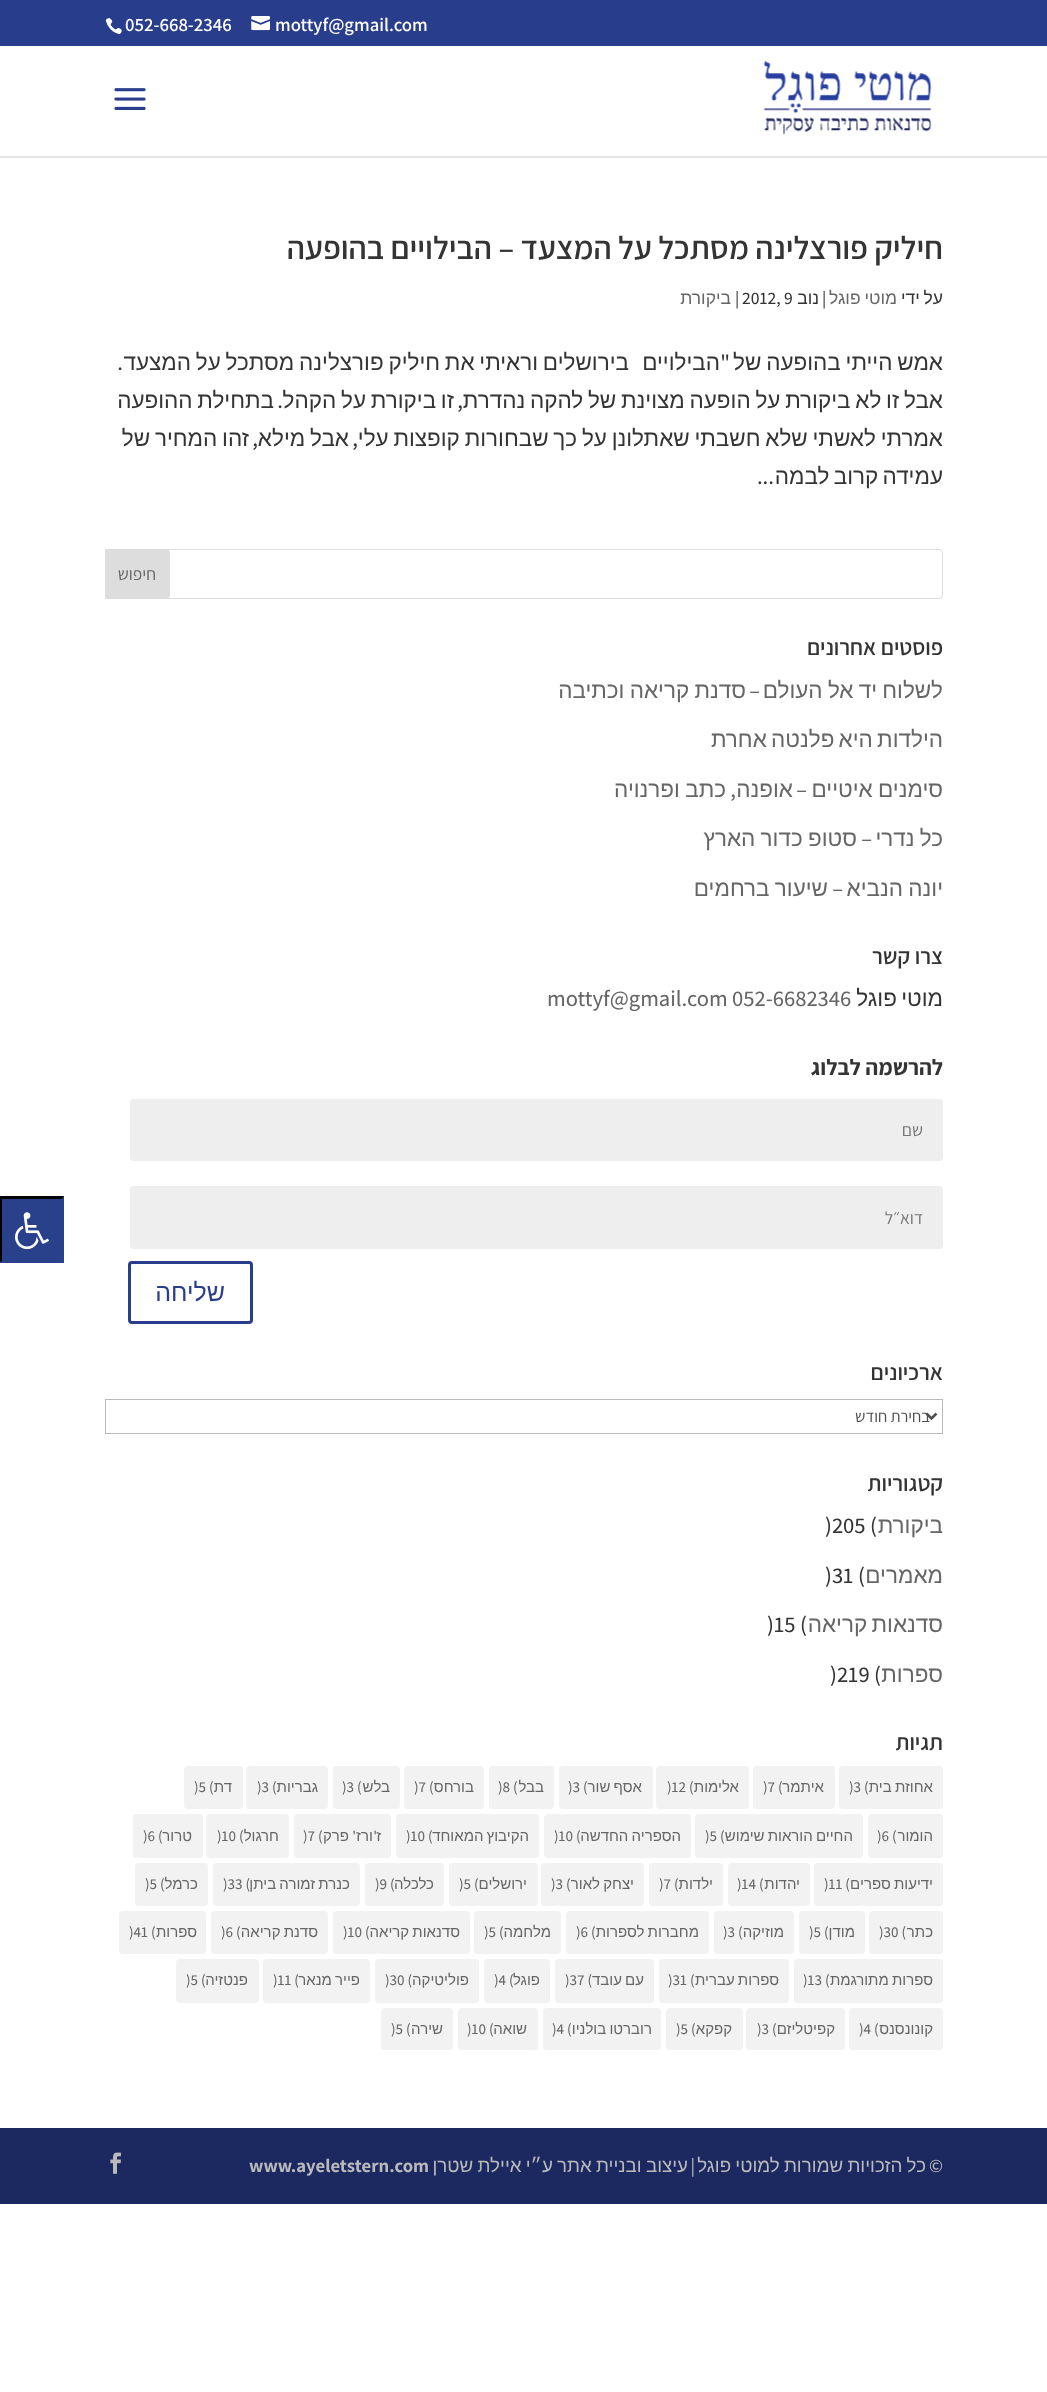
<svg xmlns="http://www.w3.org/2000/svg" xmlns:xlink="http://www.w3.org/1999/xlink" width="1047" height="2392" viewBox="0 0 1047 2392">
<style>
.cls-1{font:200 18.75px Assistant;fill:#ffffff}
.cls-2{font:600 32.5px Assistant;direction:rtl;fill:#343434}
.cls-3{font:200 32.5px Assistant;direction:rtl;fill:#343434}
.cls-4{font:17.5px Liberation Sans;direction:rtl;fill:#343434}
.cls-5{font:17.5px Liberation Sans;direction:rtl;fill:#666666}
.cls-6{font:200 17.5px 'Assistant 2';fill:#343434}
.cls-7{font:22.5px Liberation Sans;direction:rtl;fill:#343434}
.cls-8{font:200 22.5px 'Assistant 2';direction:rtl;fill:#343434}
.cls-9{font:17.5px Assistant;direction:rtl;fill:#666666}
.cls-10{font:600 22.5px Assistant;direction:rtl;fill:#343434}
.cls-11{font:22.5px Liberation Sans;direction:rtl;fill:#666666}
.cls-12{font:200 22.5px 'Assistant 2';direction:rtl;fill:#666666}
.cls-13{font:200 22.5px 'Assistant 2';fill:#666666}
.cls-14{font:bold 22.5px Assistant;direction:rtl;fill:#343434}
.cls-15{font:17.5px Assistant;direction:rtl;fill:#757575}
.cls-16{font:25px Liberation Sans;direction:rtl;fill:#293d8d}
.cls-17{font:16.5px Assistant;direction:rtl;fill:#4e4e4e}
.cls-18{font:200 22.5px 'Assistant 2';fill:#343434}
.cls-19{font:15px Liberation Sans;direction:rtl;fill:#666666}
.cls-20{font:200 15px 'Assistant 2';fill:#666666}
.cls-21{font:200 15px 'Assistant 2';direction:rtl;fill:#666666}
.cls-22{font:18.75px Liberation Sans;direction:rtl;fill:#bababa}
.cls-23{font:200 18.75px 'Assistant 2';direction:rtl;fill:#bababa}
.cls-24{font:200 18.75px 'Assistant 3';fill:#bababa}
</style>
<rect width="100%" height="100%" fill="#ffffff"/>
<rect fill="#293d8d" x="0" y="0" width="1047" height="46"/>
<image xlink:href="image0.png" x="251" y="16" width="19" height="15"/>
<image xlink:href="image1.png" x="105" y="18" width="17" height="17"/>
<path fill="#e6e6e6" d="M0 156V158H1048V48V156Z"/>
<image xlink:href="image2.png" x="763" y="60" width="169" height="75"/>
<image xlink:href="image3.png" x="114" y="88" width="32" height="22"/>
<rect fill="none" stroke="#dddddd" x="105.5" y="549.5" width="837" height="49" rx="3.5"/>
<path fill="#dddddd" stroke="#dddddd" d="M105.5 549.5H166C168 549.5 169.5 551 169.5 553V595C169.5 597 168 598.5 166 598.5H105.5Z"/>
<rect fill="#eeeeee" x="130" y="1099" width="813" height="62" rx="4"/>
<rect fill="#eeeeee" x="130" y="1186" width="813" height="63" rx="4"/>
<rect fill="none" stroke="#293d8d" stroke-width="3" x="129.5" y="1262.5" width="122" height="60" rx="2.5"/>
<rect fill="none" stroke="#bbbbbb" x="105.5" y="1399.5" width="837" height="34"/>
<path fill="none" stroke="#4e4e4e" stroke-width="2.5" d="M926.5 1413.5L931.5 1418.5L936.5 1413.5"/>
<rect fill="#f2f2f2" x="839" y="1766" width="104" height="43" rx="4"/>
<rect fill="#f2f2f2" x="753" y="1766" width="82" height="43" rx="4"/>
<rect fill="#f2f2f2" x="656" y="1766" width="93" height="43" rx="4"/>
<rect fill="#f2f2f2" x="559" y="1766" width="94" height="43" rx="4"/>
<rect fill="#f2f2f2" x="489" y="1766" width="65" height="43" rx="4"/>
<rect fill="#f2f2f2" x="404" y="1766" width="80" height="43" rx="4"/>
<rect fill="#f2f2f2" x="333" y="1766" width="67" height="43" rx="4"/>
<rect fill="#f2f2f2" x="246" y="1766" width="82" height="43" rx="4"/>
<rect fill="#f2f2f2" x="184" y="1766" width="59" height="43" rx="4"/>
<rect fill="#f2f2f2" x="868" y="1814" width="75" height="44" rx="4"/>
<rect fill="#f2f2f2" x="695" y="1814" width="168" height="44" rx="4"/>
<rect fill="#f2f2f2" x="544" y="1814" width="147" height="44" rx="4"/>
<rect fill="#f2f2f2" x="396" y="1814" width="143" height="44" rx="4"/>
<rect fill="#f2f2f2" x="294" y="1814" width="97" height="44" rx="4"/>
<rect fill="#f2f2f2" x="206" y="1814" width="83" height="44" rx="4"/>
<rect fill="#f2f2f2" x="133" y="1814" width="70" height="44" rx="4"/>
<rect fill="#f2f2f2" x="814" y="1863" width="129" height="43" rx="4"/>
<rect fill="#f2f2f2" x="728" y="1863" width="82" height="43" rx="4"/>
<rect fill="#f2f2f2" x="649" y="1863" width="74" height="43" rx="4"/>
<rect fill="#f2f2f2" x="541" y="1863" width="103" height="43" rx="4"/>
<rect fill="#f2f2f2" x="449" y="1863" width="89" height="43" rx="4"/>
<rect fill="#f2f2f2" x="365" y="1863" width="79" height="43" rx="4"/>
<rect fill="#f2f2f2" x="213" y="1863" width="147" height="43" rx="4"/>
<rect fill="#f2f2f2" x="135" y="1863" width="73" height="43" rx="4"/>
<rect fill="#f2f2f2" x="869" y="1911" width="74" height="43" rx="4"/>
<rect fill="#f2f2f2" x="799" y="1911" width="66" height="43" rx="4"/>
<rect fill="#f2f2f2" x="714" y="1911" width="80" height="43" rx="4"/>
<rect fill="#f2f2f2" x="566" y="1911" width="143" height="43" rx="4"/>
<rect fill="#f2f2f2" x="474" y="1911" width="87" height="43" rx="4"/>
<rect fill="#f2f2f2" x="333" y="1911" width="137" height="43" rx="4"/>
<rect fill="#f2f2f2" x="211" y="1911" width="117" height="43" rx="4"/>
<rect fill="#f2f2f2" x="119" y="1911" width="87" height="43" rx="4"/>
<rect fill="#f2f2f2" x="794" y="1959" width="149" height="44" rx="4"/>
<rect fill="#f2f2f2" x="659" y="1959" width="130" height="44" rx="4"/>
<rect fill="#f2f2f2" x="555" y="1959" width="99" height="44" rx="4"/>
<rect fill="#f2f2f2" x="484" y="1959" width="66" height="44" rx="4"/>
<rect fill="#f2f2f2" x="375" y="1959" width="104" height="44" rx="4"/>
<rect fill="#f2f2f2" x="263" y="1959" width="107" height="44" rx="4"/>
<rect fill="#f2f2f2" x="176" y="1959" width="83" height="44" rx="4"/>
<rect fill="#f2f2f2" x="849" y="2008" width="94" height="42" rx="4"/>
<rect fill="#f2f2f2" x="746" y="2008" width="99" height="42" rx="4"/>
<rect fill="#f2f2f2" x="666" y="2008" width="77" height="42" rx="4"/>
<rect fill="#f2f2f2" x="543" y="2008" width="118" height="42" rx="4"/>
<rect fill="#f2f2f2" x="458" y="2008" width="80" height="42" rx="4"/>
<rect fill="#f2f2f2" x="381" y="2008" width="72" height="42" rx="4"/>
<rect fill="#1c2960" x="0" y="2128" width="1047" height="76"/>
<image xlink:href="image4.png" x="110" y="2152" width="11" height="22"/>
<rect fill="#29408b" x="0" y="1196" width="64" height="67"/>
<path fill="#000000" d="M0 1196H64L62 1199H2Z"/>
<path fill="#29408b" d="M64 1196V1262L62 1261V1199Z"/>
<path fill="#000000" d="M0 1262V1196L2 1199V1261Z"/>
<image xlink:href="image5.png" x="15" y="1212" width="34" height="38"/>
<text class="cls-1" x="275" y="31">mottyf@gmail.com</text>
<text class="cls-1" x="125" y="31">052-668-2346</text>
<text class="cls-2" x="943" y="259">חיליק פורצלינה מסתכל על המצעד</text>
<text class="cls-3" x="514" y="259">–</text>
<text class="cls-2" x="492" y="259">הבילויים בהופעה</text>
<text class="cls-4" x="943" y="304" word-spacing="-1">על ידי</text>
<text class="cls-5" x="897" y="304" word-spacing="-1">מוטי פוגל</text>
<text class="cls-6" x="822" y="304">|</text>
<text class="cls-4" x="819" y="304">נוב</text>
<text class="cls-6" x="742" y="304">2012, 9</text>
<text class="cls-6" x="735" y="304">|</text>
<text class="cls-5" x="731" y="304">ביקורת</text>
<text class="cls-7" x="943" y="370" word-spacing="-1.5">אמש הייתי בהופעה של</text>
<text class="cls-8" x="730" y="370">"</text>
<text class="cls-7" x="720" y="370">הבילויים</text>
<text class="cls-7" x="629" y="370" word-spacing="-1.5">בירושלים וראיתי את חיליק פורצלינה מסתכל על המצעד</text>
<text class="cls-8" x="123" y="370">.</text>
<text class="cls-7" x="943" y="408" word-spacing="-1.5">אבל זו לא ביקורת על הופעה מצוינת של להקה נהדרת</text>
<text class="cls-7" x="454" y="408" word-spacing="-1.5">זו ביקורת על הקהל</text>
<text class="cls-8" x="463" y="408">,</text>
<text class="cls-8" x="283" y="408">.</text>
<text class="cls-7" x="274" y="408" word-spacing="-1.5">בתחילת ההופעה</text>
<text class="cls-7" x="943" y="446" word-spacing="-1.5">אמרתי לאשתי שלא חשבתי שאתלונן על כך שבחורות קופצות עלי</text>
<text class="cls-8" x="358" y="446">,</text>
<text class="cls-7" x="349" y="446" word-spacing="-1.5">אבל מילא</text>
<text class="cls-8" x="258" y="446">,</text>
<text class="cls-7" x="249" y="446" word-spacing="-1.5">זהו המחיר של</text>
<text class="cls-7" x="943" y="484" word-spacing="-2">עמידה קרוב לבמה</text>
<text class="cls-8" x="774" y="484">...</text>
<text class="cls-9" x="156" y="580">חיפוש</text>
<text class="cls-10" x="943" y="655">פוסטים אחרונים</text>
<text class="cls-11" x="943" y="698" word-spacing="-1">לשלוח יד אל העולם</text>
<text class="cls-12" x="760" y="698">–</text>
<text class="cls-11" x="746" y="698" word-spacing="-1">סדנת קריאה וכתיבה</text>
<text class="cls-11" x="943" y="747" word-spacing="-2">הילדות היא פלנטה אחרת</text>
<text class="cls-11" x="943" y="797" word-spacing="-1">סימנים איטיים</text>
<text class="cls-12" x="807" y="797">–</text>
<text class="cls-11" x="793" y="797">אופנה</text>
<text class="cls-11" x="726" y="797" word-spacing="-1">כתב ופרנויה</text>
<text class="cls-12" x="736" y="797">,</text>
<text class="cls-11" x="943" y="846" word-spacing="-1">כל נדרי</text>
<text class="cls-12" x="872" y="846">–</text>
<text class="cls-11" x="857" y="846" word-spacing="-1">סטופ כדור הארץ</text>
<text class="cls-11" x="943" y="896" word-spacing="-1">יונה הנביא</text>
<text class="cls-12" x="843" y="896">–</text>
<text class="cls-11" x="828" y="896" word-spacing="-1">שיעור ברחמים</text>
<text class="cls-10" x="943" y="964">צרו קשר</text>
<text class="cls-7" x="943" y="1006" word-spacing="-2">מוטי פוגל</text>
<text class="cls-13" x="732" y="1006">052-6682346</text>
<text class="cls-13" x="547" y="1006">mottyf@gmail.com</text>
<text class="cls-14" x="943" y="1075">להרשמה לבלוג</text>
<text class="cls-15" x="923" y="1136">שם</text>
<text class="cls-15" x="923" y="1224">דוא״ל</text>
<text class="cls-16" x="225" y="1301">שליחה</text>
<text class="cls-10" x="943" y="1380">ארכיונים</text>
<text class="cls-17" x="930" y="1422">בחירת חודש</text>
<text class="cls-10" x="943" y="1491">קטגוריות</text>
<text class="cls-11" x="943" y="1533">ביקורת</text>
<text class="cls-18" x="825" y="1533">)205 (</text>
<text class="cls-11" x="943" y="1583">מאמרים</text>
<text class="cls-18" x="825" y="1583">)31 (</text>
<text class="cls-11" x="943" y="1632" word-spacing="-2">סדנאות קריאה</text>
<text class="cls-18" x="767" y="1632">)15 (</text>
<text class="cls-11" x="943" y="1682">ספרות</text>
<text class="cls-18" x="830" y="1682">)219 (</text>
<text class="cls-10" x="943" y="1750">תגיות</text>
<text class="cls-19" x="933" y="1792" word-spacing="-1">אחוזת בית</text>
<text class="cls-20" x="849" y="1792">)3 (</text>
<text class="cls-19" x="824" y="1792">איתמר</text>
<text class="cls-20" x="763" y="1792">)7 (</text>
<text class="cls-19" x="739" y="1792">אלימות</text>
<text class="cls-20" x="667" y="1792">)12 (</text>
<text class="cls-19" x="642" y="1792" word-spacing="-1">אסף שור</text>
<text class="cls-20" x="568" y="1792">)3 (</text>
<text class="cls-19" x="544" y="1792">בבל</text>
<text class="cls-20" x="498" y="1792">)8 (</text>
<text class="cls-19" x="474" y="1792">בורחס</text>
<text class="cls-20" x="414" y="1792">)7 (</text>
<text class="cls-19" x="390" y="1792">בלש</text>
<text class="cls-20" x="342" y="1792">)3 (</text>
<text class="cls-19" x="318" y="1792">גבריות</text>
<text class="cls-20" x="257" y="1792">)3 (</text>
<text class="cls-19" x="232" y="1792">דת</text>
<text class="cls-20" x="194" y="1792">)5 (</text>
<text class="cls-19" x="933" y="1841">הומור</text>
<text class="cls-20" x="877" y="1841">)6 (</text>
<text class="cls-19" x="853" y="1841" word-spacing="-1">החיים הוראות שימוש</text>
<text class="cls-20" x="705" y="1841">)5 (</text>
<text class="cls-19" x="681" y="1841" word-spacing="-1">הספריה החדשה</text>
<text class="cls-20" x="554" y="1841">)10 (</text>
<text class="cls-19" x="529" y="1841" word-spacing="-1">הקיבוץ המאוחד</text>
<text class="cls-20" x="406" y="1841">)10 (</text>
<text class="cls-19" x="381" y="1841">ז</text>
<text class="cls-21" x="377" y="1841">'</text>
<text class="cls-19" x="373" y="1841">ורז</text>
<text class="cls-21" x="356" y="1841">'</text>
<text class="cls-19" x="349" y="1841">פרק</text>
<text class="cls-20" x="303" y="1841">)7 (</text>
<text class="cls-19" x="279" y="1841">חרגול</text>
<text class="cls-20" x="217" y="1841">)10 (</text>
<text class="cls-19" x="192" y="1841">טרור</text>
<text class="cls-20" x="143" y="1841">)6 (</text>
<text class="cls-19" x="933" y="1889" word-spacing="-1">ידיעות ספרים</text>
<text class="cls-20" x="824" y="1889">)11 (</text>
<text class="cls-19" x="800" y="1889">יהדות</text>
<text class="cls-20" x="737" y="1889">)14 (</text>
<text class="cls-19" x="713" y="1889">ילדות</text>
<text class="cls-20" x="659" y="1889">)7 (</text>
<text class="cls-19" x="634" y="1889" word-spacing="-1">יצחק לאור</text>
<text class="cls-20" x="551" y="1889">)3 (</text>
<text class="cls-19" x="527" y="1889">ירושלים</text>
<text class="cls-20" x="459" y="1889">)5 (</text>
<text class="cls-19" x="434" y="1889">כלכלה</text>
<text class="cls-20" x="375" y="1889">)9 (</text>
<text class="cls-19" x="350" y="1889" word-spacing="-1">כנרת זמורה ביתן</text>
<text class="cls-20" x="223" y="1889">)33 (</text>
<text class="cls-19" x="198" y="1889">כרמל</text>
<text class="cls-20" x="145" y="1889">)5 (</text>
<text class="cls-19" x="933" y="1937">כתר</text>
<text class="cls-20" x="879" y="1937">)30 (</text>
<text class="cls-19" x="855" y="1937">מודן</text>
<text class="cls-20" x="809" y="1937">)5 (</text>
<text class="cls-19" x="784" y="1937">מוזיקה</text>
<text class="cls-20" x="723" y="1937">)3 (</text>
<text class="cls-19" x="699" y="1937" word-spacing="-1">מחברות לספרות</text>
<text class="cls-20" x="576" y="1937">)6 (</text>
<text class="cls-19" x="551" y="1937">מלחמה</text>
<text class="cls-20" x="484" y="1937">)5 (</text>
<text class="cls-19" x="460" y="1937" word-spacing="-1">סדנאות קריאה</text>
<text class="cls-20" x="343" y="1937">)10 (</text>
<text class="cls-19" x="318" y="1937" word-spacing="-1">סדנת קריאה</text>
<text class="cls-20" x="221" y="1937">)6 (</text>
<text class="cls-19" x="197" y="1937">ספרות</text>
<text class="cls-20" x="129" y="1937">)41 (</text>
<text class="cls-19" x="933" y="1985" word-spacing="-1">ספרות מתורגמת</text>
<text class="cls-20" x="803" y="1985">)13 (</text>
<text class="cls-19" x="779" y="1985" word-spacing="-1">ספרות עברית</text>
<text class="cls-20" x="668" y="1985">)31 (</text>
<text class="cls-19" x="644" y="1985" word-spacing="-1">עם עובד</text>
<text class="cls-20" x="565" y="1985">)37 (</text>
<text class="cls-19" x="540" y="1985">פוגל</text>
<text class="cls-20" x="494" y="1985">)4 (</text>
<text class="cls-19" x="469" y="1985">פוליטיקה</text>
<text class="cls-20" x="385" y="1985">)30 (</text>
<text class="cls-19" x="360" y="1985" word-spacing="-1">פייר מנאר</text>
<text class="cls-20" x="273" y="1985">)11 (</text>
<text class="cls-19" x="248" y="1985">פנטזיה</text>
<text class="cls-20" x="186" y="1985">)5 (</text>
<text class="cls-19" x="933" y="2034">קונונסנס</text>
<text class="cls-20" x="859" y="2034">)4 (</text>
<text class="cls-19" x="835" y="2034">קפיטליזם</text>
<text class="cls-20" x="757" y="2034">)3 (</text>
<text class="cls-19" x="732" y="2034">קפקא</text>
<text class="cls-20" x="676" y="2034">)5 (</text>
<text class="cls-19" x="652" y="2034" word-spacing="-1">רוברטו בולניו</text>
<text class="cls-20" x="552" y="2034">)4 (</text>
<text class="cls-19" x="527" y="2034">שואה</text>
<text class="cls-20" x="467" y="2034">)10 (</text>
<text class="cls-19" x="443" y="2034">שירה</text>
<text class="cls-20" x="391" y="2034">)5 (</text>
<text class="cls-22" x="926" y="2172" word-spacing="-1">כל הזכויות שמורות למוטי פוגל</text>
<text class="cls-22" x="688" y="2172" word-spacing="-1">עיצוב ובניית אתר ע״י איילת שטרן</text>
<text class="cls-23" x="943" y="2172">©</text>
<text class="cls-23" x="695" y="2172">|</text>
<text class="cls-24" x="249" y="2172">www.ayeletstern.com</text>
</svg>
